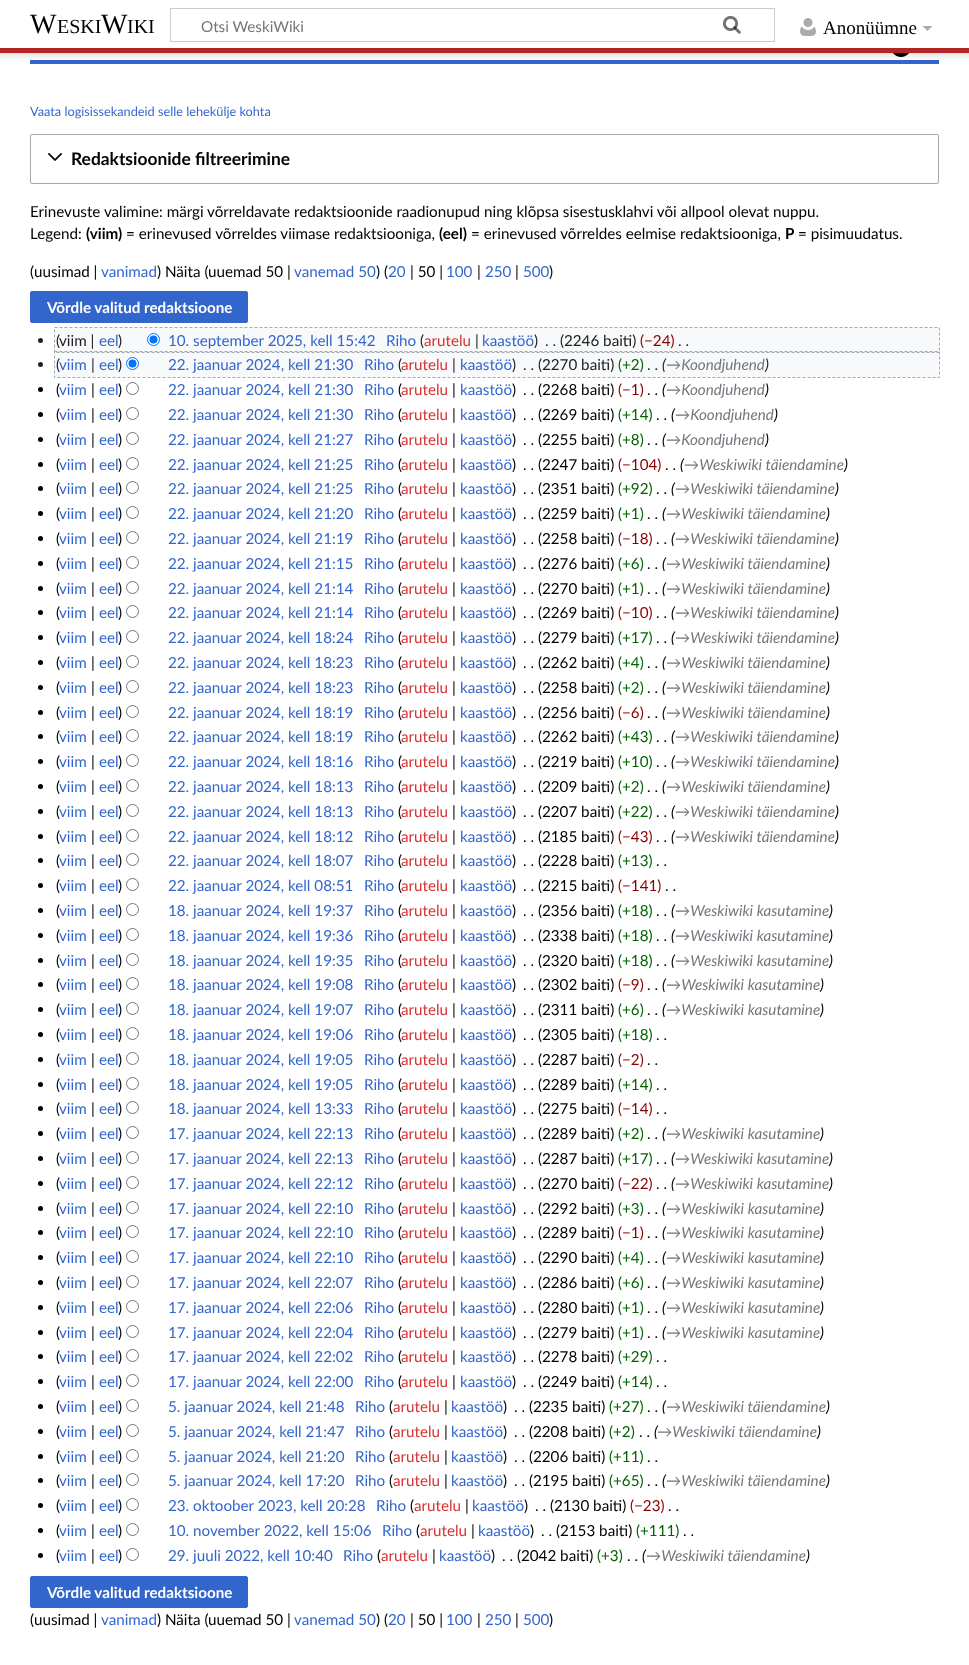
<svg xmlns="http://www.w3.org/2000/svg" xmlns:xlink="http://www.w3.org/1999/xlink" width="969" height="1665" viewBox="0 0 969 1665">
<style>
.cls-1{font:28px Liberation Serif;fill:#000000}
.cls-2{font:20px Liberation Serif;fill:#000000}
.cls-3{font:15.2px Lato;fill:#757575}
.cls-4{font:19px Liberation Serif;fill:#000000}
.cls-5{font:12.75px Lato;fill:#3366cc}
.cls-6{font:bold 17.4px Lato;fill:#000000}
.cls-7{font:15.2px Lato;fill:#000000}
.cls-8{font:bold 15.2px Lato;fill:#000000}
.cls-9{font:15.2px Lato;fill:#3366cc}
.cls-10{font:bold 15.2px Lato;fill:#ffffff}
.cls-11{font:15.2px Lato;fill:#202122}
.cls-12{font:15.2px Lato;fill:#d73333}
.cls-13{font:15.2px Lato;fill:#8b0000}
.cls-14{font:15.2px Lato;fill:#006400}
.cls-15{font:italic 15.2px Lato;fill:#202122}
.cls-16{font:italic 15.2px Lato;fill:#72777d}
.cls-17{font:italic 15.2px Lato;fill:#000000}
</style>
<rect width="100%" height="100%" fill="#ffffff"/>
<image xlink:href="image3.png" x="893" y="53" width="16" height="4"/>
<rect fill="#000000" fill-opacity="0.2" filter="blur(1px)" x="0" y="48" width="969" height="5"/>
<rect fill="#3366cc" x="30" y="60" width="909" height="4"/>
<rect fill="#000000" fill-opacity="0.07" filter="blur(1.5px)" x="-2" y="49" width="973" height="9"/>
<rect fill="#ffffff" x="0" y="46" width="969" height="2"/>
<rect fill="none" stroke="#c8ccd1" x="170.5" y="8.5" width="604" height="33"/>
<image xlink:href="image0.png" x="723" y="16" width="18" height="18"/>
<image xlink:href="image1.png" x="723" y="16" width="18" height="18"/>
<image xlink:href="image2.png" x="800" y="18" width="16" height="18"/>
<path fill="#ababab" d="M932.5 26L927.5 31L922.5 26Z"/>
<rect fill="#b32424" x="0" y="48" width="969" height="5"/>
<rect fill="none" stroke="#a2a9b1" x="30.5" y="134.5" width="908" height="49" rx="1.5"/>
<image xlink:href="image4.png" x="48" y="153" width="15" height="8"/>
<rect fill="#3366cc" stroke="#3366cc" x="30.5" y="291.5" width="217" height="31" rx="1.5"/>
<rect fill="#f8f9fa" x="55" y="328" width="884" height="49"/>
<circle fill="#202122" cx="40.5" cy="340.5" r="2.5"/>
<circle fill="#ffffff" stroke="#0075ff" cx="153.5" cy="339.5" r="6"/>
<circle fill="#0075ff" cx="153.5" cy="339.5" r="4"/>
<circle fill="#202122" cx="40.5" cy="364.5" r="2.5"/>
<circle fill="#ffffff" stroke="#0075ff" cx="132.5" cy="363.5" r="6"/>
<circle fill="#0075ff" cx="132.5" cy="363.5" r="4"/>
<circle fill="#000000" cx="40.5" cy="389.5" r="2.5"/>
<circle fill="none" stroke="#767676" cx="132.5" cy="388.5" r="6"/>
<circle fill="#000000" cx="40.5" cy="414.5" r="2.5"/>
<circle fill="none" stroke="#767676" cx="132.5" cy="413.5" r="6"/>
<circle fill="#000000" cx="40.5" cy="439.5" r="2.5"/>
<circle fill="none" stroke="#767676" cx="132.5" cy="438.5" r="6"/>
<circle fill="#000000" cx="40.5" cy="464.5" r="2.5"/>
<circle fill="none" stroke="#767676" cx="132.5" cy="463.5" r="6"/>
<circle fill="#000000" cx="40.5" cy="488.5" r="2.5"/>
<circle fill="none" stroke="#767676" cx="132.5" cy="487.5" r="6"/>
<circle fill="#000000" cx="40.5" cy="513.5" r="2.5"/>
<circle fill="none" stroke="#767676" cx="132.5" cy="512.5" r="6"/>
<circle fill="#000000" cx="40.5" cy="538.5" r="2.5"/>
<circle fill="none" stroke="#767676" cx="132.5" cy="537.5" r="6"/>
<circle fill="#000000" cx="40.5" cy="563.5" r="2.5"/>
<circle fill="none" stroke="#767676" cx="132.5" cy="562.5" r="6"/>
<circle fill="#000000" cx="40.5" cy="588.5" r="2.5"/>
<circle fill="none" stroke="#767676" cx="132.5" cy="587.5" r="6"/>
<circle fill="#000000" cx="40.5" cy="612.5" r="2.5"/>
<circle fill="none" stroke="#767676" cx="132.5" cy="611.5" r="6"/>
<circle fill="#000000" cx="40.5" cy="637.5" r="2.5"/>
<circle fill="none" stroke="#767676" cx="132.5" cy="636.5" r="6"/>
<circle fill="#000000" cx="40.5" cy="662.5" r="2.5"/>
<circle fill="none" stroke="#767676" cx="132.5" cy="661.5" r="6"/>
<circle fill="#000000" cx="40.5" cy="687.5" r="2.5"/>
<circle fill="none" stroke="#767676" cx="132.5" cy="686.5" r="6"/>
<circle fill="#000000" cx="40.5" cy="712.5" r="2.5"/>
<circle fill="none" stroke="#767676" cx="132.5" cy="711.5" r="6"/>
<circle fill="#000000" cx="40.5" cy="736.5" r="2.5"/>
<circle fill="none" stroke="#767676" cx="132.5" cy="735.5" r="6"/>
<circle fill="#000000" cx="40.5" cy="761.5" r="2.5"/>
<circle fill="none" stroke="#767676" cx="132.5" cy="760.5" r="6"/>
<circle fill="#000000" cx="40.5" cy="786.5" r="2.5"/>
<circle fill="none" stroke="#767676" cx="132.5" cy="785.5" r="6"/>
<circle fill="#000000" cx="40.5" cy="811.5" r="2.5"/>
<circle fill="none" stroke="#767676" cx="132.5" cy="810.5" r="6"/>
<circle fill="#000000" cx="40.5" cy="836.5" r="2.5"/>
<circle fill="none" stroke="#767676" cx="132.5" cy="835.5" r="6"/>
<circle fill="#000000" cx="40.5" cy="860.5" r="2.5"/>
<circle fill="none" stroke="#767676" cx="132.5" cy="859.5" r="6"/>
<circle fill="#000000" cx="40.5" cy="885.5" r="2.5"/>
<circle fill="none" stroke="#767676" cx="132.5" cy="884.5" r="6"/>
<circle fill="#000000" cx="40.5" cy="910.5" r="2.5"/>
<circle fill="none" stroke="#767676" cx="132.5" cy="909.5" r="6"/>
<circle fill="#000000" cx="40.5" cy="935.5" r="2.5"/>
<circle fill="none" stroke="#767676" cx="132.5" cy="934.5" r="6"/>
<circle fill="#000000" cx="40.5" cy="960.5" r="2.5"/>
<circle fill="none" stroke="#767676" cx="132.5" cy="959.5" r="6"/>
<circle fill="#000000" cx="40.5" cy="984.5" r="2.5"/>
<circle fill="none" stroke="#767676" cx="132.5" cy="983.5" r="6"/>
<circle fill="#000000" cx="40.5" cy="1009.5" r="2.5"/>
<circle fill="none" stroke="#767676" cx="132.5" cy="1008.5" r="6"/>
<circle fill="#000000" cx="40.5" cy="1034.5" r="2.5"/>
<circle fill="none" stroke="#767676" cx="132.5" cy="1033.5" r="6"/>
<circle fill="#000000" cx="40.5" cy="1059.5" r="2.5"/>
<circle fill="none" stroke="#767676" cx="132.5" cy="1058.5" r="6"/>
<circle fill="#000000" cx="40.5" cy="1084.5" r="2.5"/>
<circle fill="none" stroke="#767676" cx="132.5" cy="1083.5" r="6"/>
<circle fill="#000000" cx="40.5" cy="1108.5" r="2.5"/>
<circle fill="none" stroke="#767676" cx="132.5" cy="1107.5" r="6"/>
<circle fill="#000000" cx="40.5" cy="1133.5" r="2.5"/>
<circle fill="none" stroke="#767676" cx="132.5" cy="1132.5" r="6"/>
<circle fill="#000000" cx="40.5" cy="1158.5" r="2.5"/>
<circle fill="none" stroke="#767676" cx="132.5" cy="1157.5" r="6"/>
<circle fill="#000000" cx="40.5" cy="1183.5" r="2.5"/>
<circle fill="none" stroke="#767676" cx="132.5" cy="1182.5" r="6"/>
<circle fill="#000000" cx="40.5" cy="1208.5" r="2.5"/>
<circle fill="none" stroke="#767676" cx="132.5" cy="1207.5" r="6"/>
<circle fill="#000000" cx="40.5" cy="1232.5" r="2.5"/>
<circle fill="none" stroke="#767676" cx="132.5" cy="1231.5" r="6"/>
<circle fill="#000000" cx="40.5" cy="1257.5" r="2.5"/>
<circle fill="none" stroke="#767676" cx="132.5" cy="1256.5" r="6"/>
<circle fill="#000000" cx="40.5" cy="1282.5" r="2.5"/>
<circle fill="none" stroke="#767676" cx="132.5" cy="1281.5" r="6"/>
<circle fill="#000000" cx="40.5" cy="1307.5" r="2.5"/>
<circle fill="none" stroke="#767676" cx="132.5" cy="1306.5" r="6"/>
<circle fill="#000000" cx="40.5" cy="1332.5" r="2.5"/>
<circle fill="none" stroke="#767676" cx="132.5" cy="1331.5" r="6"/>
<circle fill="#000000" cx="40.5" cy="1356.5" r="2.5"/>
<circle fill="none" stroke="#767676" cx="132.5" cy="1355.5" r="6"/>
<circle fill="#000000" cx="40.5" cy="1381.5" r="2.5"/>
<circle fill="none" stroke="#767676" cx="132.5" cy="1380.5" r="6"/>
<circle fill="#000000" cx="40.5" cy="1406.5" r="2.5"/>
<circle fill="none" stroke="#767676" cx="132.5" cy="1405.5" r="6"/>
<circle fill="#000000" cx="40.5" cy="1431.5" r="2.5"/>
<circle fill="none" stroke="#767676" cx="132.5" cy="1430.5" r="6"/>
<circle fill="#000000" cx="40.5" cy="1456.5" r="2.5"/>
<circle fill="none" stroke="#767676" cx="132.5" cy="1455.5" r="6"/>
<circle fill="#000000" cx="40.5" cy="1480.5" r="2.5"/>
<circle fill="none" stroke="#767676" cx="132.5" cy="1479.5" r="6"/>
<circle fill="#000000" cx="40.5" cy="1505.5" r="2.5"/>
<circle fill="none" stroke="#767676" cx="132.5" cy="1504.5" r="6"/>
<circle fill="#000000" cx="40.5" cy="1530.5" r="2.5"/>
<circle fill="none" stroke="#767676" cx="132.5" cy="1529.5" r="6"/>
<circle fill="#000000" cx="40.5" cy="1555.5" r="2.5"/>
<circle fill="none" stroke="#767676" cx="132.5" cy="1554.5" r="6"/>
<rect fill="#3366cc" stroke="#3366cc" x="30.5" y="1576.5" width="217" height="31" rx="1.5"/>
<text class="cls-1" x="30" y="33">W</text>
<text class="cls-2" x="57" y="33">ESKI</text>
<text class="cls-1" x="101" y="33">W</text>
<text class="cls-2" x="127" y="33">IKI</text>
<text class="cls-3" x="201" y="32">Otsi WeskiWiki</text>
<text class="cls-4" x="823" y="34">Anonüümne</text>
<text class="cls-5" x="30" y="116">Vaata logisissekandeid selle lehekülje kohta</text>
<text class="cls-6" x="71" y="165">Redaktsioonide filtreerimine</text>
<text class="cls-7"><tspan x="30" y="217">Erinevuste valimine: märgi võrreldavate redaktsioonide raadionupud ning klõpsa sisestusklahvi või allpool olevat nuppu.</tspan><tspan x="30" y="239">Legend:</tspan></text>
<text class="cls-8" x="86" y="239">(viim)</text>
<text class="cls-7" x="126" y="239">= erinevused võrreldes viimase redaktsiooniga,</text>
<text class="cls-8" x="439" y="239">(eel)</text>
<text class="cls-7" x="471" y="239">= erinevused võrreldes eelmise redaktsiooniga,</text>
<text class="cls-8" x="785" y="239">P</text>
<text class="cls-7" x="798" y="239">= pisimuudatus.</text>
<text class="cls-7" x="30" y="277">(</text>
<text class="cls-7" x="34" y="277">uusimad |</text>
<text class="cls-9" x="101" y="277">vanimad</text>
<text class="cls-7" x="157" y="277">) Näita (</text>
<text class="cls-7" x="208" y="277">uuemad 50 |</text>
<text class="cls-9" x="294" y="277">vanemad 50</text>
<text class="cls-7" x="376" y="277">) (</text>
<text class="cls-9" x="388" y="277">20</text>
<text class="cls-7" x="410" y="277">| 50 |</text>
<text class="cls-9" x="446" y="277">100</text>
<text class="cls-7" x="477" y="277">|</text>
<text class="cls-9" x="485" y="277">250</text>
<text class="cls-7" x="515" y="277">|</text>
<text class="cls-9" x="523" y="277">500</text>
<text class="cls-7" x="549" y="277">)</text>
<text class="cls-10" x="47" y="313">Võrdle valitud redaktsioone</text>
<text class="cls-11" x="56" y="346">(</text>
<text class="cls-11" x="59" y="346">viim |</text>
<text class="cls-9" x="99" y="346">eel</text>
<text class="cls-11" x="118" y="346">)</text>
<text class="cls-9" x="168" y="346">10. september 2025, kell 15:42</text>
<text class="cls-9" x="386" y="346">Riho</text>
<text class="cls-11" x="420" y="346">(</text>
<text class="cls-12" x="424" y="346">arutelu</text>
<text class="cls-11" x="475" y="346">|</text>
<text class="cls-9" x="482" y="346">kaastöö</text>
<text class="cls-11" x="534" y="346">)</text>
<text class="cls-11" x="545" y="346">. . (2246 baiti)</text>
<text class="cls-13" x="640" y="346">(−24)</text>
<text class="cls-11" x="678" y="346">. .</text>
<path fill="none" stroke="#a2a9b1" stroke-dasharray="3 2" d="M54.5 327.5H939.5V352.5H54.5Z"/>
<text class="cls-11" x="56" y="370">(</text>
<text class="cls-9" x="59" y="370">viim</text>
<text class="cls-11" x="91" y="370">|</text>
<text class="cls-9" x="99" y="370">eel</text>
<text class="cls-11" x="118" y="370">)</text>
<text class="cls-9" x="168" y="370">22. jaanuar 2024, kell 21:30</text>
<text class="cls-9" x="364" y="370">Riho</text>
<text class="cls-11" x="398" y="370">(</text>
<text class="cls-12" x="401" y="370">arutelu</text>
<text class="cls-11" x="452" y="370">|</text>
<text class="cls-9" x="460" y="370">kaastöö</text>
<text class="cls-11" x="512" y="370">)</text>
<text class="cls-11" x="523" y="370">. . (2270 baiti)</text>
<text class="cls-14" x="618" y="370">(+2)</text>
<text class="cls-15" x="662" y="370">(</text>
<text class="cls-16" x="666" y="370">→Koondjuhend</text>
<text class="cls-15" x="765" y="370">)</text>
<text class="cls-11" x="647" y="370">. .</text>
<path fill="none" stroke="#a2a9b1" stroke-dasharray="3 2" d="M54.5 351.5H939.5V377.5H54.5Z"/>
<text class="cls-7" x="56" y="395">(</text>
<text class="cls-9" x="59" y="395">viim</text>
<text class="cls-7" x="91" y="395">|</text>
<text class="cls-9" x="99" y="395">eel</text>
<text class="cls-7" x="118" y="395">)</text>
<text class="cls-9" x="168" y="395">22. jaanuar 2024, kell 21:30</text>
<text class="cls-9" x="364" y="395">Riho</text>
<text class="cls-7" x="398" y="395">(</text>
<text class="cls-12" x="401" y="395">arutelu</text>
<text class="cls-7" x="452" y="395">|</text>
<text class="cls-9" x="460" y="395">kaastöö</text>
<text class="cls-7" x="512" y="395">)</text>
<text class="cls-7" x="523" y="395">. . (2268 baiti)</text>
<text class="cls-13" x="618" y="395">(−1)</text>
<text class="cls-17" x="662" y="395">(</text>
<text class="cls-16" x="666" y="395">→Koondjuhend</text>
<text class="cls-17" x="765" y="395">)</text>
<text class="cls-7" x="647" y="395">. .</text>
<text class="cls-7" x="56" y="420">(</text>
<text class="cls-9" x="59" y="420">viim</text>
<text class="cls-7" x="91" y="420">|</text>
<text class="cls-9" x="99" y="420">eel</text>
<text class="cls-7" x="118" y="420">)</text>
<text class="cls-9" x="168" y="420">22. jaanuar 2024, kell 21:30</text>
<text class="cls-9" x="364" y="420">Riho</text>
<text class="cls-7" x="398" y="420">(</text>
<text class="cls-12" x="401" y="420">arutelu</text>
<text class="cls-7" x="452" y="420">|</text>
<text class="cls-9" x="460" y="420">kaastöö</text>
<text class="cls-7" x="512" y="420">)</text>
<text class="cls-7" x="523" y="420">. . (2269 baiti)</text>
<text class="cls-14" x="618" y="420">(+14)</text>
<text class="cls-17" x="671" y="420">(</text>
<text class="cls-16" x="675" y="420">→Koondjuhend</text>
<text class="cls-17" x="774" y="420">)</text>
<text class="cls-7" x="656" y="420">. .</text>
<text class="cls-7" x="56" y="445">(</text>
<text class="cls-9" x="59" y="445">viim</text>
<text class="cls-7" x="91" y="445">|</text>
<text class="cls-9" x="99" y="445">eel</text>
<text class="cls-7" x="118" y="445">)</text>
<text class="cls-9" x="168" y="445">22. jaanuar 2024, kell 21:27</text>
<text class="cls-9" x="364" y="445">Riho</text>
<text class="cls-7" x="398" y="445">(</text>
<text class="cls-12" x="401" y="445">arutelu</text>
<text class="cls-7" x="452" y="445">|</text>
<text class="cls-9" x="460" y="445">kaastöö</text>
<text class="cls-7" x="512" y="445">)</text>
<text class="cls-7" x="523" y="445">. . (2255 baiti)</text>
<text class="cls-14" x="618" y="445">(+8)</text>
<text class="cls-17" x="662" y="445">(</text>
<text class="cls-16" x="666" y="445">→Koondjuhend</text>
<text class="cls-17" x="765" y="445">)</text>
<text class="cls-7" x="647" y="445">. .</text>
<text class="cls-7" x="56" y="470">(</text>
<text class="cls-9" x="59" y="470">viim</text>
<text class="cls-7" x="91" y="470">|</text>
<text class="cls-9" x="99" y="470">eel</text>
<text class="cls-7" x="118" y="470">)</text>
<text class="cls-9" x="168" y="470">22. jaanuar 2024, kell 21:25</text>
<text class="cls-9" x="364" y="470">Riho</text>
<text class="cls-7" x="398" y="470">(</text>
<text class="cls-12" x="401" y="470">arutelu</text>
<text class="cls-7" x="452" y="470">|</text>
<text class="cls-9" x="460" y="470">kaastöö</text>
<text class="cls-7" x="512" y="470">)</text>
<text class="cls-7" x="523" y="470">. . (2247 baiti)</text>
<text class="cls-13" x="618" y="470">(−104)</text>
<text class="cls-17" x="680" y="470">(</text>
<text class="cls-16" x="684" y="470">→Weskiwiki täiendamine</text>
<text class="cls-17" x="844" y="470">)</text>
<text class="cls-7" x="665" y="470">. .</text>
<text class="cls-7" x="56" y="494">(</text>
<text class="cls-9" x="59" y="494">viim</text>
<text class="cls-7" x="91" y="494">|</text>
<text class="cls-9" x="99" y="494">eel</text>
<text class="cls-7" x="118" y="494">)</text>
<text class="cls-9" x="168" y="494">22. jaanuar 2024, kell 21:25</text>
<text class="cls-9" x="364" y="494">Riho</text>
<text class="cls-7" x="398" y="494">(</text>
<text class="cls-12" x="401" y="494">arutelu</text>
<text class="cls-7" x="452" y="494">|</text>
<text class="cls-9" x="460" y="494">kaastöö</text>
<text class="cls-7" x="512" y="494">)</text>
<text class="cls-7" x="523" y="494">. . (2351 baiti)</text>
<text class="cls-14" x="618" y="494">(+92)</text>
<text class="cls-17" x="671" y="494">(</text>
<text class="cls-16" x="675" y="494">→Weskiwiki täiendamine</text>
<text class="cls-17" x="835" y="494">)</text>
<text class="cls-7" x="656" y="494">. .</text>
<text class="cls-7" x="56" y="519">(</text>
<text class="cls-9" x="59" y="519">viim</text>
<text class="cls-7" x="91" y="519">|</text>
<text class="cls-9" x="99" y="519">eel</text>
<text class="cls-7" x="118" y="519">)</text>
<text class="cls-9" x="168" y="519">22. jaanuar 2024, kell 21:20</text>
<text class="cls-9" x="364" y="519">Riho</text>
<text class="cls-7" x="398" y="519">(</text>
<text class="cls-12" x="401" y="519">arutelu</text>
<text class="cls-7" x="452" y="519">|</text>
<text class="cls-9" x="460" y="519">kaastöö</text>
<text class="cls-7" x="512" y="519">)</text>
<text class="cls-7" x="523" y="519">. . (2259 baiti)</text>
<text class="cls-14" x="618" y="519">(+1)</text>
<text class="cls-17" x="662" y="519">(</text>
<text class="cls-16" x="666" y="519">→Weskiwiki täiendamine</text>
<text class="cls-17" x="826" y="519">)</text>
<text class="cls-7" x="647" y="519">. .</text>
<text class="cls-7" x="56" y="544">(</text>
<text class="cls-9" x="59" y="544">viim</text>
<text class="cls-7" x="91" y="544">|</text>
<text class="cls-9" x="99" y="544">eel</text>
<text class="cls-7" x="118" y="544">)</text>
<text class="cls-9" x="168" y="544">22. jaanuar 2024, kell 21:19</text>
<text class="cls-9" x="364" y="544">Riho</text>
<text class="cls-7" x="398" y="544">(</text>
<text class="cls-12" x="401" y="544">arutelu</text>
<text class="cls-7" x="452" y="544">|</text>
<text class="cls-9" x="460" y="544">kaastöö</text>
<text class="cls-7" x="512" y="544">)</text>
<text class="cls-7" x="523" y="544">. . (2258 baiti)</text>
<text class="cls-13" x="618" y="544">(−18)</text>
<text class="cls-17" x="671" y="544">(</text>
<text class="cls-16" x="675" y="544">→Weskiwiki täiendamine</text>
<text class="cls-17" x="835" y="544">)</text>
<text class="cls-7" x="656" y="544">. .</text>
<text class="cls-7" x="56" y="569">(</text>
<text class="cls-9" x="59" y="569">viim</text>
<text class="cls-7" x="91" y="569">|</text>
<text class="cls-9" x="99" y="569">eel</text>
<text class="cls-7" x="118" y="569">)</text>
<text class="cls-9" x="168" y="569">22. jaanuar 2024, kell 21:15</text>
<text class="cls-9" x="364" y="569">Riho</text>
<text class="cls-7" x="398" y="569">(</text>
<text class="cls-12" x="401" y="569">arutelu</text>
<text class="cls-7" x="452" y="569">|</text>
<text class="cls-9" x="460" y="569">kaastöö</text>
<text class="cls-7" x="512" y="569">)</text>
<text class="cls-7" x="523" y="569">. . (2276 baiti)</text>
<text class="cls-14" x="618" y="569">(+6)</text>
<text class="cls-17" x="662" y="569">(</text>
<text class="cls-16" x="666" y="569">→Weskiwiki täiendamine</text>
<text class="cls-17" x="826" y="569">)</text>
<text class="cls-7" x="647" y="569">. .</text>
<text class="cls-7" x="56" y="594">(</text>
<text class="cls-9" x="59" y="594">viim</text>
<text class="cls-7" x="91" y="594">|</text>
<text class="cls-9" x="99" y="594">eel</text>
<text class="cls-7" x="118" y="594">)</text>
<text class="cls-9" x="168" y="594">22. jaanuar 2024, kell 21:14</text>
<text class="cls-9" x="364" y="594">Riho</text>
<text class="cls-7" x="398" y="594">(</text>
<text class="cls-12" x="401" y="594">arutelu</text>
<text class="cls-7" x="452" y="594">|</text>
<text class="cls-9" x="460" y="594">kaastöö</text>
<text class="cls-7" x="512" y="594">)</text>
<text class="cls-7" x="523" y="594">. . (2270 baiti)</text>
<text class="cls-14" x="618" y="594">(+1)</text>
<text class="cls-17" x="662" y="594">(</text>
<text class="cls-16" x="666" y="594">→Weskiwiki täiendamine</text>
<text class="cls-17" x="826" y="594">)</text>
<text class="cls-7" x="647" y="594">. .</text>
<text class="cls-7" x="56" y="618">(</text>
<text class="cls-9" x="59" y="618">viim</text>
<text class="cls-7" x="91" y="618">|</text>
<text class="cls-9" x="99" y="618">eel</text>
<text class="cls-7" x="118" y="618">)</text>
<text class="cls-9" x="168" y="618">22. jaanuar 2024, kell 21:14</text>
<text class="cls-9" x="364" y="618">Riho</text>
<text class="cls-7" x="398" y="618">(</text>
<text class="cls-12" x="401" y="618">arutelu</text>
<text class="cls-7" x="452" y="618">|</text>
<text class="cls-9" x="460" y="618">kaastöö</text>
<text class="cls-7" x="512" y="618">)</text>
<text class="cls-7" x="523" y="618">. . (2269 baiti)</text>
<text class="cls-13" x="618" y="618">(−10)</text>
<text class="cls-17" x="671" y="618">(</text>
<text class="cls-16" x="675" y="618">→Weskiwiki täiendamine</text>
<text class="cls-17" x="835" y="618">)</text>
<text class="cls-7" x="656" y="618">. .</text>
<text class="cls-7" x="56" y="643">(</text>
<text class="cls-9" x="59" y="643">viim</text>
<text class="cls-7" x="91" y="643">|</text>
<text class="cls-9" x="99" y="643">eel</text>
<text class="cls-7" x="118" y="643">)</text>
<text class="cls-9" x="168" y="643">22. jaanuar 2024, kell 18:24</text>
<text class="cls-9" x="364" y="643">Riho</text>
<text class="cls-7" x="398" y="643">(</text>
<text class="cls-12" x="401" y="643">arutelu</text>
<text class="cls-7" x="452" y="643">|</text>
<text class="cls-9" x="460" y="643">kaastöö</text>
<text class="cls-7" x="512" y="643">)</text>
<text class="cls-7" x="523" y="643">. . (2279 baiti)</text>
<text class="cls-14" x="618" y="643">(+17)</text>
<text class="cls-17" x="671" y="643">(</text>
<text class="cls-16" x="675" y="643">→Weskiwiki täiendamine</text>
<text class="cls-17" x="835" y="643">)</text>
<text class="cls-7" x="656" y="643">. .</text>
<text class="cls-7" x="56" y="668">(</text>
<text class="cls-9" x="59" y="668">viim</text>
<text class="cls-7" x="91" y="668">|</text>
<text class="cls-9" x="99" y="668">eel</text>
<text class="cls-7" x="118" y="668">)</text>
<text class="cls-9" x="168" y="668">22. jaanuar 2024, kell 18:23</text>
<text class="cls-9" x="364" y="668">Riho</text>
<text class="cls-7" x="398" y="668">(</text>
<text class="cls-12" x="401" y="668">arutelu</text>
<text class="cls-7" x="452" y="668">|</text>
<text class="cls-9" x="460" y="668">kaastöö</text>
<text class="cls-7" x="512" y="668">)</text>
<text class="cls-7" x="523" y="668">. . (2262 baiti)</text>
<text class="cls-14" x="618" y="668">(+4)</text>
<text class="cls-17" x="662" y="668">(</text>
<text class="cls-16" x="666" y="668">→Weskiwiki täiendamine</text>
<text class="cls-17" x="826" y="668">)</text>
<text class="cls-7" x="647" y="668">. .</text>
<text class="cls-7" x="56" y="693">(</text>
<text class="cls-9" x="59" y="693">viim</text>
<text class="cls-7" x="91" y="693">|</text>
<text class="cls-9" x="99" y="693">eel</text>
<text class="cls-7" x="118" y="693">)</text>
<text class="cls-9" x="168" y="693">22. jaanuar 2024, kell 18:23</text>
<text class="cls-9" x="364" y="693">Riho</text>
<text class="cls-7" x="398" y="693">(</text>
<text class="cls-12" x="401" y="693">arutelu</text>
<text class="cls-7" x="452" y="693">|</text>
<text class="cls-9" x="460" y="693">kaastöö</text>
<text class="cls-7" x="512" y="693">)</text>
<text class="cls-7" x="523" y="693">. . (2258 baiti)</text>
<text class="cls-14" x="618" y="693">(+2)</text>
<text class="cls-17" x="662" y="693">(</text>
<text class="cls-16" x="666" y="693">→Weskiwiki täiendamine</text>
<text class="cls-17" x="826" y="693">)</text>
<text class="cls-7" x="647" y="693">. .</text>
<text class="cls-7" x="56" y="718">(</text>
<text class="cls-9" x="59" y="718">viim</text>
<text class="cls-7" x="91" y="718">|</text>
<text class="cls-9" x="99" y="718">eel</text>
<text class="cls-7" x="118" y="718">)</text>
<text class="cls-9" x="168" y="718">22. jaanuar 2024, kell 18:19</text>
<text class="cls-9" x="364" y="718">Riho</text>
<text class="cls-7" x="398" y="718">(</text>
<text class="cls-12" x="401" y="718">arutelu</text>
<text class="cls-7" x="452" y="718">|</text>
<text class="cls-9" x="460" y="718">kaastöö</text>
<text class="cls-7" x="512" y="718">)</text>
<text class="cls-7" x="523" y="718">. . (2256 baiti)</text>
<text class="cls-13" x="618" y="718">(−6)</text>
<text class="cls-17" x="662" y="718">(</text>
<text class="cls-16" x="666" y="718">→Weskiwiki täiendamine</text>
<text class="cls-17" x="826" y="718">)</text>
<text class="cls-7" x="647" y="718">. .</text>
<text class="cls-7" x="56" y="742">(</text>
<text class="cls-9" x="59" y="742">viim</text>
<text class="cls-7" x="91" y="742">|</text>
<text class="cls-9" x="99" y="742">eel</text>
<text class="cls-7" x="118" y="742">)</text>
<text class="cls-9" x="168" y="742">22. jaanuar 2024, kell 18:19</text>
<text class="cls-9" x="364" y="742">Riho</text>
<text class="cls-7" x="398" y="742">(</text>
<text class="cls-12" x="401" y="742">arutelu</text>
<text class="cls-7" x="452" y="742">|</text>
<text class="cls-9" x="460" y="742">kaastöö</text>
<text class="cls-7" x="512" y="742">)</text>
<text class="cls-7" x="523" y="742">. . (2262 baiti)</text>
<text class="cls-14" x="618" y="742">(+43)</text>
<text class="cls-17" x="671" y="742">(</text>
<text class="cls-16" x="675" y="742">→Weskiwiki täiendamine</text>
<text class="cls-17" x="835" y="742">)</text>
<text class="cls-7" x="656" y="742">. .</text>
<text class="cls-7" x="56" y="767">(</text>
<text class="cls-9" x="59" y="767">viim</text>
<text class="cls-7" x="91" y="767">|</text>
<text class="cls-9" x="99" y="767">eel</text>
<text class="cls-7" x="118" y="767">)</text>
<text class="cls-9" x="168" y="767">22. jaanuar 2024, kell 18:16</text>
<text class="cls-9" x="364" y="767">Riho</text>
<text class="cls-7" x="398" y="767">(</text>
<text class="cls-12" x="401" y="767">arutelu</text>
<text class="cls-7" x="452" y="767">|</text>
<text class="cls-9" x="460" y="767">kaastöö</text>
<text class="cls-7" x="512" y="767">)</text>
<text class="cls-7" x="523" y="767">. . (2219 baiti)</text>
<text class="cls-14" x="618" y="767">(+10)</text>
<text class="cls-17" x="671" y="767">(</text>
<text class="cls-16" x="675" y="767">→Weskiwiki täiendamine</text>
<text class="cls-17" x="835" y="767">)</text>
<text class="cls-7" x="656" y="767">. .</text>
<text class="cls-7" x="56" y="792">(</text>
<text class="cls-9" x="59" y="792">viim</text>
<text class="cls-7" x="91" y="792">|</text>
<text class="cls-9" x="99" y="792">eel</text>
<text class="cls-7" x="118" y="792">)</text>
<text class="cls-9" x="168" y="792">22. jaanuar 2024, kell 18:13</text>
<text class="cls-9" x="364" y="792">Riho</text>
<text class="cls-7" x="398" y="792">(</text>
<text class="cls-12" x="401" y="792">arutelu</text>
<text class="cls-7" x="452" y="792">|</text>
<text class="cls-9" x="460" y="792">kaastöö</text>
<text class="cls-7" x="512" y="792">)</text>
<text class="cls-7" x="523" y="792">. . (2209 baiti)</text>
<text class="cls-14" x="618" y="792">(+2)</text>
<text class="cls-17" x="662" y="792">(</text>
<text class="cls-16" x="666" y="792">→Weskiwiki täiendamine</text>
<text class="cls-17" x="826" y="792">)</text>
<text class="cls-7" x="647" y="792">. .</text>
<text class="cls-7" x="56" y="817">(</text>
<text class="cls-9" x="59" y="817">viim</text>
<text class="cls-7" x="91" y="817">|</text>
<text class="cls-9" x="99" y="817">eel</text>
<text class="cls-7" x="118" y="817">)</text>
<text class="cls-9" x="168" y="817">22. jaanuar 2024, kell 18:13</text>
<text class="cls-9" x="364" y="817">Riho</text>
<text class="cls-7" x="398" y="817">(</text>
<text class="cls-12" x="401" y="817">arutelu</text>
<text class="cls-7" x="452" y="817">|</text>
<text class="cls-9" x="460" y="817">kaastöö</text>
<text class="cls-7" x="512" y="817">)</text>
<text class="cls-7" x="523" y="817">. . (2207 baiti)</text>
<text class="cls-14" x="618" y="817">(+22)</text>
<text class="cls-17" x="671" y="817">(</text>
<text class="cls-16" x="675" y="817">→Weskiwiki täiendamine</text>
<text class="cls-17" x="835" y="817">)</text>
<text class="cls-7" x="656" y="817">. .</text>
<text class="cls-7" x="56" y="842">(</text>
<text class="cls-9" x="59" y="842">viim</text>
<text class="cls-7" x="91" y="842">|</text>
<text class="cls-9" x="99" y="842">eel</text>
<text class="cls-7" x="118" y="842">)</text>
<text class="cls-9" x="168" y="842">22. jaanuar 2024, kell 18:12</text>
<text class="cls-9" x="364" y="842">Riho</text>
<text class="cls-7" x="398" y="842">(</text>
<text class="cls-12" x="401" y="842">arutelu</text>
<text class="cls-7" x="452" y="842">|</text>
<text class="cls-9" x="460" y="842">kaastöö</text>
<text class="cls-7" x="512" y="842">)</text>
<text class="cls-7" x="523" y="842">. . (2185 baiti)</text>
<text class="cls-13" x="618" y="842">(−43)</text>
<text class="cls-17" x="671" y="842">(</text>
<text class="cls-16" x="675" y="842">→Weskiwiki täiendamine</text>
<text class="cls-17" x="835" y="842">)</text>
<text class="cls-7" x="656" y="842">. .</text>
<text class="cls-7" x="56" y="866">(</text>
<text class="cls-9" x="59" y="866">viim</text>
<text class="cls-7" x="91" y="866">|</text>
<text class="cls-9" x="99" y="866">eel</text>
<text class="cls-7" x="118" y="866">)</text>
<text class="cls-9" x="168" y="866">22. jaanuar 2024, kell 18:07</text>
<text class="cls-9" x="364" y="866">Riho</text>
<text class="cls-7" x="398" y="866">(</text>
<text class="cls-12" x="401" y="866">arutelu</text>
<text class="cls-7" x="452" y="866">|</text>
<text class="cls-9" x="460" y="866">kaastöö</text>
<text class="cls-7" x="512" y="866">)</text>
<text class="cls-7" x="523" y="866">. . (2228 baiti)</text>
<text class="cls-14" x="618" y="866">(+13)</text>
<text class="cls-7" x="656" y="866">. .</text>
<text class="cls-7" x="56" y="891">(</text>
<text class="cls-9" x="59" y="891">viim</text>
<text class="cls-7" x="91" y="891">|</text>
<text class="cls-9" x="99" y="891">eel</text>
<text class="cls-7" x="118" y="891">)</text>
<text class="cls-9" x="168" y="891">22. jaanuar 2024, kell 08:51</text>
<text class="cls-9" x="364" y="891">Riho</text>
<text class="cls-7" x="398" y="891">(</text>
<text class="cls-12" x="401" y="891">arutelu</text>
<text class="cls-7" x="452" y="891">|</text>
<text class="cls-9" x="460" y="891">kaastöö</text>
<text class="cls-7" x="512" y="891">)</text>
<text class="cls-7" x="523" y="891">. . (2215 baiti)</text>
<text class="cls-13" x="618" y="891">(−141)</text>
<text class="cls-7" x="665" y="891">. .</text>
<text class="cls-7" x="56" y="916">(</text>
<text class="cls-9" x="59" y="916">viim</text>
<text class="cls-7" x="91" y="916">|</text>
<text class="cls-9" x="99" y="916">eel</text>
<text class="cls-7" x="118" y="916">)</text>
<text class="cls-9" x="168" y="916">18. jaanuar 2024, kell 19:37</text>
<text class="cls-9" x="364" y="916">Riho</text>
<text class="cls-7" x="398" y="916">(</text>
<text class="cls-12" x="401" y="916">arutelu</text>
<text class="cls-7" x="452" y="916">|</text>
<text class="cls-9" x="460" y="916">kaastöö</text>
<text class="cls-7" x="512" y="916">)</text>
<text class="cls-7" x="523" y="916">. . (2356 baiti)</text>
<text class="cls-14" x="618" y="916">(+18)</text>
<text class="cls-17" x="671" y="916">(</text>
<text class="cls-16" x="675" y="916">→Weskiwiki kasutamine</text>
<text class="cls-17" x="829" y="916">)</text>
<text class="cls-7" x="656" y="916">. .</text>
<text class="cls-7" x="56" y="941">(</text>
<text class="cls-9" x="59" y="941">viim</text>
<text class="cls-7" x="91" y="941">|</text>
<text class="cls-9" x="99" y="941">eel</text>
<text class="cls-7" x="118" y="941">)</text>
<text class="cls-9" x="168" y="941">18. jaanuar 2024, kell 19:36</text>
<text class="cls-9" x="364" y="941">Riho</text>
<text class="cls-7" x="398" y="941">(</text>
<text class="cls-12" x="401" y="941">arutelu</text>
<text class="cls-7" x="452" y="941">|</text>
<text class="cls-9" x="460" y="941">kaastöö</text>
<text class="cls-7" x="512" y="941">)</text>
<text class="cls-7" x="523" y="941">. . (2338 baiti)</text>
<text class="cls-14" x="618" y="941">(+18)</text>
<text class="cls-17" x="671" y="941">(</text>
<text class="cls-16" x="675" y="941">→Weskiwiki kasutamine</text>
<text class="cls-17" x="829" y="941">)</text>
<text class="cls-7" x="656" y="941">. .</text>
<text class="cls-7" x="56" y="966">(</text>
<text class="cls-9" x="59" y="966">viim</text>
<text class="cls-7" x="91" y="966">|</text>
<text class="cls-9" x="99" y="966">eel</text>
<text class="cls-7" x="118" y="966">)</text>
<text class="cls-9" x="168" y="966">18. jaanuar 2024, kell 19:35</text>
<text class="cls-9" x="364" y="966">Riho</text>
<text class="cls-7" x="398" y="966">(</text>
<text class="cls-12" x="401" y="966">arutelu</text>
<text class="cls-7" x="452" y="966">|</text>
<text class="cls-9" x="460" y="966">kaastöö</text>
<text class="cls-7" x="512" y="966">)</text>
<text class="cls-7" x="523" y="966">. . (2320 baiti)</text>
<text class="cls-14" x="618" y="966">(+18)</text>
<text class="cls-17" x="671" y="966">(</text>
<text class="cls-16" x="675" y="966">→Weskiwiki kasutamine</text>
<text class="cls-17" x="829" y="966">)</text>
<text class="cls-7" x="656" y="966">. .</text>
<text class="cls-7" x="56" y="990">(</text>
<text class="cls-9" x="59" y="990">viim</text>
<text class="cls-7" x="91" y="990">|</text>
<text class="cls-9" x="99" y="990">eel</text>
<text class="cls-7" x="118" y="990">)</text>
<text class="cls-9" x="168" y="990">18. jaanuar 2024, kell 19:08</text>
<text class="cls-9" x="364" y="990">Riho</text>
<text class="cls-7" x="398" y="990">(</text>
<text class="cls-12" x="401" y="990">arutelu</text>
<text class="cls-7" x="452" y="990">|</text>
<text class="cls-9" x="460" y="990">kaastöö</text>
<text class="cls-7" x="512" y="990">)</text>
<text class="cls-7" x="523" y="990">. . (2302 baiti)</text>
<text class="cls-13" x="618" y="990">(−9)</text>
<text class="cls-17" x="662" y="990">(</text>
<text class="cls-16" x="666" y="990">→Weskiwiki kasutamine</text>
<text class="cls-17" x="820" y="990">)</text>
<text class="cls-7" x="647" y="990">. .</text>
<text class="cls-7" x="56" y="1015">(</text>
<text class="cls-9" x="59" y="1015">viim</text>
<text class="cls-7" x="91" y="1015">|</text>
<text class="cls-9" x="99" y="1015">eel</text>
<text class="cls-7" x="118" y="1015">)</text>
<text class="cls-9" x="168" y="1015">18. jaanuar 2024, kell 19:07</text>
<text class="cls-9" x="364" y="1015">Riho</text>
<text class="cls-7" x="398" y="1015">(</text>
<text class="cls-12" x="401" y="1015">arutelu</text>
<text class="cls-7" x="452" y="1015">|</text>
<text class="cls-9" x="460" y="1015">kaastöö</text>
<text class="cls-7" x="512" y="1015">)</text>
<text class="cls-7" x="523" y="1015">. . (2311 baiti)</text>
<text class="cls-14" x="618" y="1015">(+6)</text>
<text class="cls-17" x="662" y="1015">(</text>
<text class="cls-16" x="666" y="1015">→Weskiwiki kasutamine</text>
<text class="cls-17" x="820" y="1015">)</text>
<text class="cls-7" x="647" y="1015">. .</text>
<text class="cls-7" x="56" y="1040">(</text>
<text class="cls-9" x="59" y="1040">viim</text>
<text class="cls-7" x="91" y="1040">|</text>
<text class="cls-9" x="99" y="1040">eel</text>
<text class="cls-7" x="118" y="1040">)</text>
<text class="cls-9" x="168" y="1040">18. jaanuar 2024, kell 19:06</text>
<text class="cls-9" x="364" y="1040">Riho</text>
<text class="cls-7" x="398" y="1040">(</text>
<text class="cls-12" x="401" y="1040">arutelu</text>
<text class="cls-7" x="452" y="1040">|</text>
<text class="cls-9" x="460" y="1040">kaastöö</text>
<text class="cls-7" x="512" y="1040">)</text>
<text class="cls-7" x="523" y="1040">. . (2305 baiti)</text>
<text class="cls-14" x="618" y="1040">(+18)</text>
<text class="cls-7" x="656" y="1040">. .</text>
<text class="cls-7" x="56" y="1065">(</text>
<text class="cls-9" x="59" y="1065">viim</text>
<text class="cls-7" x="91" y="1065">|</text>
<text class="cls-9" x="99" y="1065">eel</text>
<text class="cls-7" x="118" y="1065">)</text>
<text class="cls-9" x="168" y="1065">18. jaanuar 2024, kell 19:05</text>
<text class="cls-9" x="364" y="1065">Riho</text>
<text class="cls-7" x="398" y="1065">(</text>
<text class="cls-12" x="401" y="1065">arutelu</text>
<text class="cls-7" x="452" y="1065">|</text>
<text class="cls-9" x="460" y="1065">kaastöö</text>
<text class="cls-7" x="512" y="1065">)</text>
<text class="cls-7" x="523" y="1065">. . (2287 baiti)</text>
<text class="cls-13" x="618" y="1065">(−2)</text>
<text class="cls-7" x="647" y="1065">. .</text>
<text class="cls-7" x="56" y="1090">(</text>
<text class="cls-9" x="59" y="1090">viim</text>
<text class="cls-7" x="91" y="1090">|</text>
<text class="cls-9" x="99" y="1090">eel</text>
<text class="cls-7" x="118" y="1090">)</text>
<text class="cls-9" x="168" y="1090">18. jaanuar 2024, kell 19:05</text>
<text class="cls-9" x="364" y="1090">Riho</text>
<text class="cls-7" x="398" y="1090">(</text>
<text class="cls-12" x="401" y="1090">arutelu</text>
<text class="cls-7" x="452" y="1090">|</text>
<text class="cls-9" x="460" y="1090">kaastöö</text>
<text class="cls-7" x="512" y="1090">)</text>
<text class="cls-7" x="523" y="1090">. . (2289 baiti)</text>
<text class="cls-14" x="618" y="1090">(+14)</text>
<text class="cls-7" x="656" y="1090">. .</text>
<text class="cls-7" x="56" y="1114">(</text>
<text class="cls-9" x="59" y="1114">viim</text>
<text class="cls-7" x="91" y="1114">|</text>
<text class="cls-9" x="99" y="1114">eel</text>
<text class="cls-7" x="118" y="1114">)</text>
<text class="cls-9" x="168" y="1114">18. jaanuar 2024, kell 13:33</text>
<text class="cls-9" x="364" y="1114">Riho</text>
<text class="cls-7" x="398" y="1114">(</text>
<text class="cls-12" x="401" y="1114">arutelu</text>
<text class="cls-7" x="452" y="1114">|</text>
<text class="cls-9" x="460" y="1114">kaastöö</text>
<text class="cls-7" x="512" y="1114">)</text>
<text class="cls-7" x="523" y="1114">. . (2275 baiti)</text>
<text class="cls-13" x="618" y="1114">(−14)</text>
<text class="cls-7" x="656" y="1114">. .</text>
<text class="cls-7" x="56" y="1139">(</text>
<text class="cls-9" x="59" y="1139">viim</text>
<text class="cls-7" x="91" y="1139">|</text>
<text class="cls-9" x="99" y="1139">eel</text>
<text class="cls-7" x="118" y="1139">)</text>
<text class="cls-9" x="168" y="1139">17. jaanuar 2024, kell 22:13</text>
<text class="cls-9" x="364" y="1139">Riho</text>
<text class="cls-7" x="398" y="1139">(</text>
<text class="cls-12" x="401" y="1139">arutelu</text>
<text class="cls-7" x="452" y="1139">|</text>
<text class="cls-9" x="460" y="1139">kaastöö</text>
<text class="cls-7" x="512" y="1139">)</text>
<text class="cls-7" x="523" y="1139">. . (2289 baiti)</text>
<text class="cls-14" x="618" y="1139">(+2)</text>
<text class="cls-17" x="662" y="1139">(</text>
<text class="cls-16" x="666" y="1139">→Weskiwiki kasutamine</text>
<text class="cls-17" x="820" y="1139">)</text>
<text class="cls-7" x="647" y="1139">. .</text>
<text class="cls-7" x="56" y="1164">(</text>
<text class="cls-9" x="59" y="1164">viim</text>
<text class="cls-7" x="91" y="1164">|</text>
<text class="cls-9" x="99" y="1164">eel</text>
<text class="cls-7" x="118" y="1164">)</text>
<text class="cls-9" x="168" y="1164">17. jaanuar 2024, kell 22:13</text>
<text class="cls-9" x="364" y="1164">Riho</text>
<text class="cls-7" x="398" y="1164">(</text>
<text class="cls-12" x="401" y="1164">arutelu</text>
<text class="cls-7" x="452" y="1164">|</text>
<text class="cls-9" x="460" y="1164">kaastöö</text>
<text class="cls-7" x="512" y="1164">)</text>
<text class="cls-7" x="523" y="1164">. . (2287 baiti)</text>
<text class="cls-14" x="618" y="1164">(+17)</text>
<text class="cls-17" x="671" y="1164">(</text>
<text class="cls-16" x="675" y="1164">→Weskiwiki kasutamine</text>
<text class="cls-17" x="829" y="1164">)</text>
<text class="cls-7" x="656" y="1164">. .</text>
<text class="cls-7" x="56" y="1189">(</text>
<text class="cls-9" x="59" y="1189">viim</text>
<text class="cls-7" x="91" y="1189">|</text>
<text class="cls-9" x="99" y="1189">eel</text>
<text class="cls-7" x="118" y="1189">)</text>
<text class="cls-9" x="168" y="1189">17. jaanuar 2024, kell 22:12</text>
<text class="cls-9" x="364" y="1189">Riho</text>
<text class="cls-7" x="398" y="1189">(</text>
<text class="cls-12" x="401" y="1189">arutelu</text>
<text class="cls-7" x="452" y="1189">|</text>
<text class="cls-9" x="460" y="1189">kaastöö</text>
<text class="cls-7" x="512" y="1189">)</text>
<text class="cls-7" x="523" y="1189">. . (2270 baiti)</text>
<text class="cls-13" x="618" y="1189">(−22)</text>
<text class="cls-17" x="671" y="1189">(</text>
<text class="cls-16" x="675" y="1189">→Weskiwiki kasutamine</text>
<text class="cls-17" x="829" y="1189">)</text>
<text class="cls-7" x="656" y="1189">. .</text>
<text class="cls-7" x="56" y="1214">(</text>
<text class="cls-9" x="59" y="1214">viim</text>
<text class="cls-7" x="91" y="1214">|</text>
<text class="cls-9" x="99" y="1214">eel</text>
<text class="cls-7" x="118" y="1214">)</text>
<text class="cls-9" x="168" y="1214">17. jaanuar 2024, kell 22:10</text>
<text class="cls-9" x="364" y="1214">Riho</text>
<text class="cls-7" x="398" y="1214">(</text>
<text class="cls-12" x="401" y="1214">arutelu</text>
<text class="cls-7" x="452" y="1214">|</text>
<text class="cls-9" x="460" y="1214">kaastöö</text>
<text class="cls-7" x="512" y="1214">)</text>
<text class="cls-7" x="523" y="1214">. . (2292 baiti)</text>
<text class="cls-14" x="618" y="1214">(+3)</text>
<text class="cls-17" x="662" y="1214">(</text>
<text class="cls-16" x="666" y="1214">→Weskiwiki kasutamine</text>
<text class="cls-17" x="820" y="1214">)</text>
<text class="cls-7" x="647" y="1214">. .</text>
<text class="cls-7" x="56" y="1238">(</text>
<text class="cls-9" x="59" y="1238">viim</text>
<text class="cls-7" x="91" y="1238">|</text>
<text class="cls-9" x="99" y="1238">eel</text>
<text class="cls-7" x="118" y="1238">)</text>
<text class="cls-9" x="168" y="1238">17. jaanuar 2024, kell 22:10</text>
<text class="cls-9" x="364" y="1238">Riho</text>
<text class="cls-7" x="398" y="1238">(</text>
<text class="cls-12" x="401" y="1238">arutelu</text>
<text class="cls-7" x="452" y="1238">|</text>
<text class="cls-9" x="460" y="1238">kaastöö</text>
<text class="cls-7" x="512" y="1238">)</text>
<text class="cls-7" x="523" y="1238">. . (2289 baiti)</text>
<text class="cls-13" x="618" y="1238">(−1)</text>
<text class="cls-17" x="662" y="1238">(</text>
<text class="cls-16" x="666" y="1238">→Weskiwiki kasutamine</text>
<text class="cls-17" x="820" y="1238">)</text>
<text class="cls-7" x="647" y="1238">. .</text>
<text class="cls-7" x="56" y="1263">(</text>
<text class="cls-9" x="59" y="1263">viim</text>
<text class="cls-7" x="91" y="1263">|</text>
<text class="cls-9" x="99" y="1263">eel</text>
<text class="cls-7" x="118" y="1263">)</text>
<text class="cls-9" x="168" y="1263">17. jaanuar 2024, kell 22:10</text>
<text class="cls-9" x="364" y="1263">Riho</text>
<text class="cls-7" x="398" y="1263">(</text>
<text class="cls-12" x="401" y="1263">arutelu</text>
<text class="cls-7" x="452" y="1263">|</text>
<text class="cls-9" x="460" y="1263">kaastöö</text>
<text class="cls-7" x="512" y="1263">)</text>
<text class="cls-7" x="523" y="1263">. . (2290 baiti)</text>
<text class="cls-14" x="618" y="1263">(+4)</text>
<text class="cls-17" x="662" y="1263">(</text>
<text class="cls-16" x="666" y="1263">→Weskiwiki kasutamine</text>
<text class="cls-17" x="820" y="1263">)</text>
<text class="cls-7" x="647" y="1263">. .</text>
<text class="cls-7" x="56" y="1288">(</text>
<text class="cls-9" x="59" y="1288">viim</text>
<text class="cls-7" x="91" y="1288">|</text>
<text class="cls-9" x="99" y="1288">eel</text>
<text class="cls-7" x="118" y="1288">)</text>
<text class="cls-9" x="168" y="1288">17. jaanuar 2024, kell 22:07</text>
<text class="cls-9" x="364" y="1288">Riho</text>
<text class="cls-7" x="398" y="1288">(</text>
<text class="cls-12" x="401" y="1288">arutelu</text>
<text class="cls-7" x="452" y="1288">|</text>
<text class="cls-9" x="460" y="1288">kaastöö</text>
<text class="cls-7" x="512" y="1288">)</text>
<text class="cls-7" x="523" y="1288">. . (2286 baiti)</text>
<text class="cls-14" x="618" y="1288">(+6)</text>
<text class="cls-17" x="662" y="1288">(</text>
<text class="cls-16" x="666" y="1288">→Weskiwiki kasutamine</text>
<text class="cls-17" x="820" y="1288">)</text>
<text class="cls-7" x="647" y="1288">. .</text>
<text class="cls-7" x="56" y="1313">(</text>
<text class="cls-9" x="59" y="1313">viim</text>
<text class="cls-7" x="91" y="1313">|</text>
<text class="cls-9" x="99" y="1313">eel</text>
<text class="cls-7" x="118" y="1313">)</text>
<text class="cls-9" x="168" y="1313">17. jaanuar 2024, kell 22:06</text>
<text class="cls-9" x="364" y="1313">Riho</text>
<text class="cls-7" x="398" y="1313">(</text>
<text class="cls-12" x="401" y="1313">arutelu</text>
<text class="cls-7" x="452" y="1313">|</text>
<text class="cls-9" x="460" y="1313">kaastöö</text>
<text class="cls-7" x="512" y="1313">)</text>
<text class="cls-7" x="523" y="1313">. . (2280 baiti)</text>
<text class="cls-14" x="618" y="1313">(+1)</text>
<text class="cls-17" x="662" y="1313">(</text>
<text class="cls-16" x="666" y="1313">→Weskiwiki kasutamine</text>
<text class="cls-17" x="820" y="1313">)</text>
<text class="cls-7" x="647" y="1313">. .</text>
<text class="cls-7" x="56" y="1338">(</text>
<text class="cls-9" x="59" y="1338">viim</text>
<text class="cls-7" x="91" y="1338">|</text>
<text class="cls-9" x="99" y="1338">eel</text>
<text class="cls-7" x="118" y="1338">)</text>
<text class="cls-9" x="168" y="1338">17. jaanuar 2024, kell 22:04</text>
<text class="cls-9" x="364" y="1338">Riho</text>
<text class="cls-7" x="398" y="1338">(</text>
<text class="cls-12" x="401" y="1338">arutelu</text>
<text class="cls-7" x="452" y="1338">|</text>
<text class="cls-9" x="460" y="1338">kaastöö</text>
<text class="cls-7" x="512" y="1338">)</text>
<text class="cls-7" x="523" y="1338">. . (2279 baiti)</text>
<text class="cls-14" x="618" y="1338">(+1)</text>
<text class="cls-17" x="662" y="1338">(</text>
<text class="cls-16" x="666" y="1338">→Weskiwiki kasutamine</text>
<text class="cls-17" x="820" y="1338">)</text>
<text class="cls-7" x="647" y="1338">. .</text>
<text class="cls-7" x="56" y="1362">(</text>
<text class="cls-9" x="59" y="1362">viim</text>
<text class="cls-7" x="91" y="1362">|</text>
<text class="cls-9" x="99" y="1362">eel</text>
<text class="cls-7" x="118" y="1362">)</text>
<text class="cls-9" x="168" y="1362">17. jaanuar 2024, kell 22:02</text>
<text class="cls-9" x="364" y="1362">Riho</text>
<text class="cls-7" x="398" y="1362">(</text>
<text class="cls-12" x="401" y="1362">arutelu</text>
<text class="cls-7" x="452" y="1362">|</text>
<text class="cls-9" x="460" y="1362">kaastöö</text>
<text class="cls-7" x="512" y="1362">)</text>
<text class="cls-7" x="523" y="1362">. . (2278 baiti)</text>
<text class="cls-14" x="618" y="1362">(+29)</text>
<text class="cls-7" x="656" y="1362">. .</text>
<text class="cls-7" x="56" y="1387">(</text>
<text class="cls-9" x="59" y="1387">viim</text>
<text class="cls-7" x="91" y="1387">|</text>
<text class="cls-9" x="99" y="1387">eel</text>
<text class="cls-7" x="118" y="1387">)</text>
<text class="cls-9" x="168" y="1387">17. jaanuar 2024, kell 22:00</text>
<text class="cls-9" x="364" y="1387">Riho</text>
<text class="cls-7" x="398" y="1387">(</text>
<text class="cls-12" x="401" y="1387">arutelu</text>
<text class="cls-7" x="452" y="1387">|</text>
<text class="cls-9" x="460" y="1387">kaastöö</text>
<text class="cls-7" x="512" y="1387">)</text>
<text class="cls-7" x="523" y="1387">. . (2249 baiti)</text>
<text class="cls-14" x="618" y="1387">(+14)</text>
<text class="cls-7" x="656" y="1387">. .</text>
<text class="cls-7" x="56" y="1412">(</text>
<text class="cls-9" x="59" y="1412">viim</text>
<text class="cls-7" x="91" y="1412">|</text>
<text class="cls-9" x="99" y="1412">eel</text>
<text class="cls-7" x="118" y="1412">)</text>
<text class="cls-9" x="168" y="1412">5. jaanuar 2024, kell 21:48</text>
<text class="cls-9" x="355" y="1412">Riho</text>
<text class="cls-7" x="389" y="1412">(</text>
<text class="cls-12" x="393" y="1412">arutelu</text>
<text class="cls-7" x="444" y="1412">|</text>
<text class="cls-9" x="451" y="1412">kaastöö</text>
<text class="cls-7" x="503" y="1412">)</text>
<text class="cls-7" x="514" y="1412">. . (2235 baiti)</text>
<text class="cls-14" x="609" y="1412">(+27)</text>
<text class="cls-17" x="662" y="1412">(</text>
<text class="cls-16" x="666" y="1412">→Weskiwiki täiendamine</text>
<text class="cls-17" x="826" y="1412">)</text>
<text class="cls-7" x="647" y="1412">. .</text>
<text class="cls-7" x="56" y="1437">(</text>
<text class="cls-9" x="59" y="1437">viim</text>
<text class="cls-7" x="91" y="1437">|</text>
<text class="cls-9" x="99" y="1437">eel</text>
<text class="cls-7" x="118" y="1437">)</text>
<text class="cls-9" x="168" y="1437">5. jaanuar 2024, kell 21:47</text>
<text class="cls-9" x="355" y="1437">Riho</text>
<text class="cls-7" x="389" y="1437">(</text>
<text class="cls-12" x="393" y="1437">arutelu</text>
<text class="cls-7" x="444" y="1437">|</text>
<text class="cls-9" x="451" y="1437">kaastöö</text>
<text class="cls-7" x="503" y="1437">)</text>
<text class="cls-7" x="514" y="1437">. . (2208 baiti)</text>
<text class="cls-14" x="609" y="1437">(+2)</text>
<text class="cls-17" x="654" y="1437">(</text>
<text class="cls-16" x="657" y="1437">→Weskiwiki täiendamine</text>
<text class="cls-17" x="817" y="1437">)</text>
<text class="cls-7" x="639" y="1437">. .</text>
<text class="cls-7" x="56" y="1462">(</text>
<text class="cls-9" x="59" y="1462">viim</text>
<text class="cls-7" x="91" y="1462">|</text>
<text class="cls-9" x="99" y="1462">eel</text>
<text class="cls-7" x="118" y="1462">)</text>
<text class="cls-9" x="168" y="1462">5. jaanuar 2024, kell 21:20</text>
<text class="cls-9" x="355" y="1462">Riho</text>
<text class="cls-7" x="389" y="1462">(</text>
<text class="cls-12" x="393" y="1462">arutelu</text>
<text class="cls-7" x="444" y="1462">|</text>
<text class="cls-9" x="451" y="1462">kaastöö</text>
<text class="cls-7" x="503" y="1462">)</text>
<text class="cls-7" x="514" y="1462">. . (2206 baiti)</text>
<text class="cls-14" x="609" y="1462">(+11)</text>
<text class="cls-7" x="647" y="1462">. .</text>
<text class="cls-7" x="56" y="1486">(</text>
<text class="cls-9" x="59" y="1486">viim</text>
<text class="cls-7" x="91" y="1486">|</text>
<text class="cls-9" x="99" y="1486">eel</text>
<text class="cls-7" x="118" y="1486">)</text>
<text class="cls-9" x="168" y="1486">5. jaanuar 2024, kell 17:20</text>
<text class="cls-9" x="355" y="1486">Riho</text>
<text class="cls-7" x="389" y="1486">(</text>
<text class="cls-12" x="393" y="1486">arutelu</text>
<text class="cls-7" x="444" y="1486">|</text>
<text class="cls-9" x="451" y="1486">kaastöö</text>
<text class="cls-7" x="503" y="1486">)</text>
<text class="cls-7" x="514" y="1486">. . (2195 baiti)</text>
<text class="cls-14" x="609" y="1486">(+65)</text>
<text class="cls-17" x="662" y="1486">(</text>
<text class="cls-16" x="666" y="1486">→Weskiwiki täiendamine</text>
<text class="cls-17" x="826" y="1486">)</text>
<text class="cls-7" x="647" y="1486">. .</text>
<text class="cls-7" x="56" y="1511">(</text>
<text class="cls-9" x="59" y="1511">viim</text>
<text class="cls-7" x="91" y="1511">|</text>
<text class="cls-9" x="99" y="1511">eel</text>
<text class="cls-7" x="118" y="1511">)</text>
<text class="cls-9" x="168" y="1511">23. oktoober 2023, kell 20:28</text>
<text class="cls-9" x="376" y="1511">Riho</text>
<text class="cls-7" x="410" y="1511">(</text>
<text class="cls-12" x="414" y="1511">arutelu</text>
<text class="cls-7" x="465" y="1511">|</text>
<text class="cls-9" x="472" y="1511">kaastöö</text>
<text class="cls-7" x="524" y="1511">)</text>
<text class="cls-7" x="535" y="1511">. . (2130 baiti)</text>
<text class="cls-13" x="630" y="1511">(−23)</text>
<text class="cls-7" x="668" y="1511">. .</text>
<text class="cls-7" x="56" y="1536">(</text>
<text class="cls-9" x="59" y="1536">viim</text>
<text class="cls-7" x="91" y="1536">|</text>
<text class="cls-9" x="99" y="1536">eel</text>
<text class="cls-7" x="118" y="1536">)</text>
<text class="cls-9" x="168" y="1536">10. november 2022, kell 15:06</text>
<text class="cls-9" x="382" y="1536">Riho</text>
<text class="cls-7" x="416" y="1536">(</text>
<text class="cls-12" x="420" y="1536">arutelu</text>
<text class="cls-7" x="471" y="1536">|</text>
<text class="cls-9" x="478" y="1536">kaastöö</text>
<text class="cls-7" x="530" y="1536">)</text>
<text class="cls-7" x="541" y="1536">. . (2153 baiti)</text>
<text class="cls-14" x="636" y="1536">(+111)</text>
<text class="cls-7" x="683" y="1536">. .</text>
<text class="cls-7" x="56" y="1561">(</text>
<text class="cls-9" x="59" y="1561">viim</text>
<text class="cls-7" x="91" y="1561">|</text>
<text class="cls-9" x="99" y="1561">eel</text>
<text class="cls-7" x="118" y="1561">)</text>
<text class="cls-9" x="168" y="1561">29. juuli 2022, kell 10:40</text>
<text class="cls-9" x="343" y="1561">Riho</text>
<text class="cls-7" x="377" y="1561">(</text>
<text class="cls-12" x="381" y="1561">arutelu</text>
<text class="cls-7" x="432" y="1561">|</text>
<text class="cls-9" x="439" y="1561">kaastöö</text>
<text class="cls-7" x="491" y="1561">)</text>
<text class="cls-7" x="502" y="1561">. . (2042 baiti)</text>
<text class="cls-14" x="597" y="1561">(+3)</text>
<text class="cls-17" x="642" y="1561">(</text>
<text class="cls-16" x="646" y="1561">→Weskiwiki täiendamine</text>
<text class="cls-17" x="806" y="1561">)</text>
<text class="cls-7" x="627" y="1561">. .</text>
<text class="cls-10" x="47" y="1598">Võrdle valitud redaktsioone</text>
<text class="cls-7" x="30" y="1625">(</text>
<text class="cls-7" x="34" y="1625">uusimad |</text>
<text class="cls-9" x="101" y="1625">vanimad</text>
<text class="cls-7" x="157" y="1625">) Näita (</text>
<text class="cls-7" x="208" y="1625">uuemad 50 |</text>
<text class="cls-9" x="294" y="1625">vanemad 50</text>
<text class="cls-7" x="376" y="1625">) (</text>
<text class="cls-9" x="388" y="1625">20</text>
<text class="cls-7" x="410" y="1625">| 50 |</text>
<text class="cls-9" x="446" y="1625">100</text>
<text class="cls-7" x="477" y="1625">|</text>
<text class="cls-9" x="485" y="1625">250</text>
<text class="cls-7" x="515" y="1625">|</text>
<text class="cls-9" x="523" y="1625">500</text>
<text class="cls-7" x="549" y="1625">)</text>
</svg>
